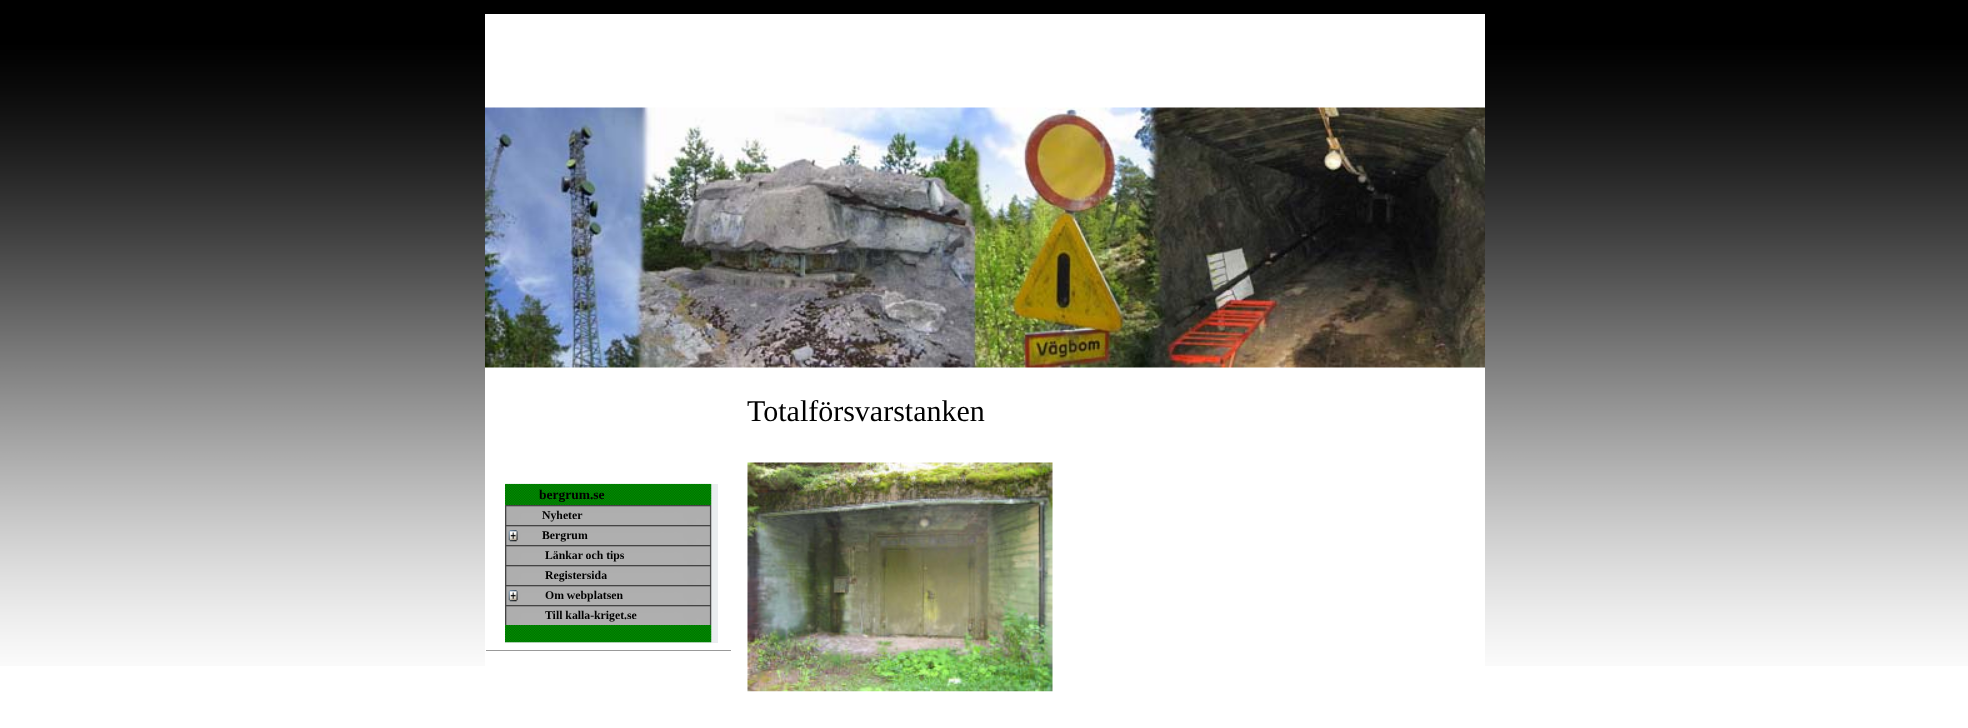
<svg xmlns="http://www.w3.org/2000/svg" xmlns:xlink="http://www.w3.org/1999/xlink" width="1968" height="728" viewBox="0 0 1968 728">
<style>
.cls-1{font:30px Liberation Serif;fill:#000000}
.cls-2{font:bold 13.5px Liberation Serif;fill:#000000}
.cls-3{font:bold 11.75px Liberation Serif;fill:#000000}
</style>
<rect width="100%" height="100%" fill="#ffffff"/>
<image xlink:href="image0.png" x="0" y="0" width="1968" height="666"/>
<rect fill="#ffffff" x="485" y="14" width="1000" height="652"/>
<image xlink:href="image1.png" x="485" y="107" width="1000" height="261"/>
<image xlink:href="image2.png" x="747" y="462" width="306" height="230"/>
<rect fill="#999999" x="486" y="650" width="245" height="1"/>
<rect fill="#eaedef" x="505" y="484" width="213" height="159"/>
<image xlink:href="image3.png" x="505" y="483" width="207" height="22"/>
<image xlink:href="image4.png" x="505" y="505" width="207" height="20"/>
<image xlink:href="image4.png" x="505" y="525" width="207" height="20"/>
<image xlink:href="image5.png" x="508" y="530" width="10" height="12"/>
<image xlink:href="image4.png" x="505" y="545" width="207" height="20"/>
<image xlink:href="image4.png" x="505" y="565" width="207" height="20"/>
<image xlink:href="image4.png" x="505" y="585" width="207" height="20"/>
<image xlink:href="image5.png" x="508" y="590" width="10" height="12"/>
<image xlink:href="image4.png" x="505" y="605" width="207" height="20"/>
<image xlink:href="image6.png" x="505" y="625" width="207" height="18"/>
<text class="cls-1" x="747" y="421">Totalförsvarstanken</text>
<text class="cls-2" x="539" y="499">bergrum.se</text>
<text class="cls-3"><tspan x="542" y="519">Nyheter</tspan><tspan x="542" y="539">Bergrum</tspan></text>
<text class="cls-3"><tspan x="545" y="559">Länkar och tips</tspan><tspan x="545" y="579">Registersida</tspan><tspan x="545" y="599">Om webplatsen</tspan><tspan x="545" y="619">Till kalla-kriget.se</tspan></text>
</svg>
